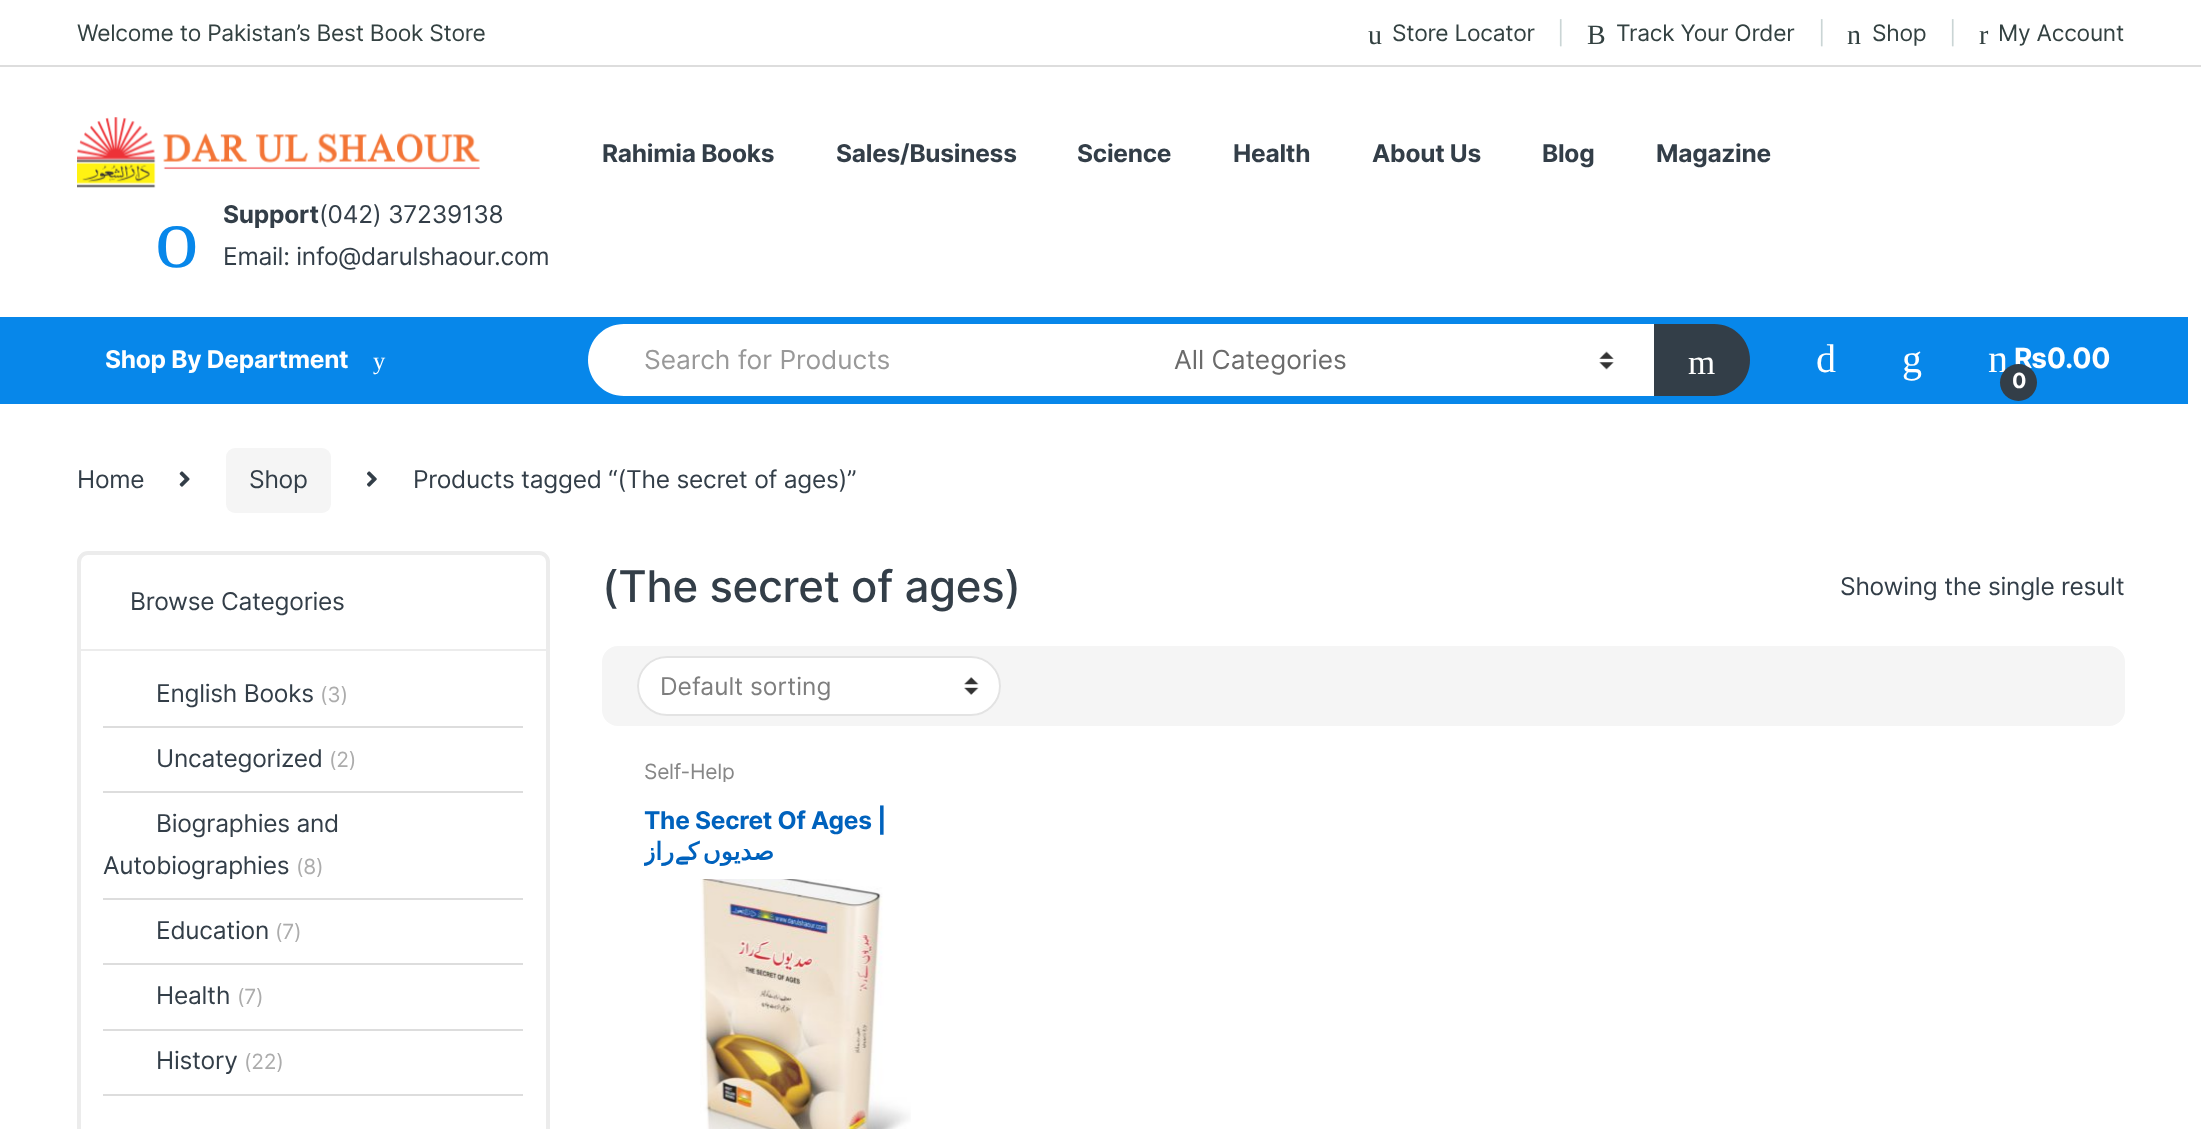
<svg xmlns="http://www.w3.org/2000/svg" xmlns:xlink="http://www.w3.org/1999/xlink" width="2201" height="1129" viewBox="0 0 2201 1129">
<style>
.cls-1{font:22.75px Inter;letter-spacing:-0.25px;fill:#334141}
.cls-2{font:28px Liberation Serif;letter-spacing:-0.25px;fill:#334141}
.cls-3{font:22.75px Inter;letter-spacing:-0.25px;fill:#cad5d5}
.cls-4{font:bold 24.5px Inter;letter-spacing:-0.25px;fill:#333e48}
.cls-5{font:87px Liberation Serif;letter-spacing:-0.25px;fill:#0787ea}
.cls-6{font:24.5px Inter;letter-spacing:-0.25px;fill:#333e48}
.cls-7{font:bold 24.5px Inter;letter-spacing:-0.25px;fill:#ffffff}
.cls-8{font:24.5px Liberation Serif;letter-spacing:-0.25px;fill:#ffffff}
.cls-9{font:26.25px Inter;fill:#999999}
.cls-10{font:26.25px Inter;fill:#6b6b6b}
.cls-11{font:35px Liberation Serif;fill:#ffffff}
.cls-12{font:40px Liberation Serif;letter-spacing:-0.25px;fill:#ffffff}
.cls-13{font:bold 28px Inter;letter-spacing:-0.25px;fill:#ffffff}
.cls-14{font:bold 21px Inter;letter-spacing:-0.25px;fill:#ffffff}
.cls-15{font:21px Inter;letter-spacing:-0.25px;fill:#acacac}
.cls-16{font:500 43.75px Inter;letter-spacing:-0.25px;fill:#333e48}
.cls-17{font:24.5px Inter;fill:#7e7e7e}
.cls-18{font:21px Inter;letter-spacing:-0.25px;fill:#878787}
.cls-19{font:bold 24.5px Inter;letter-spacing:-0.25px;fill:#0062bd}
.cls-20{font:bold 24.5px DejaVu Sans;letter-spacing:-0.25px;direction:rtl;fill:#0062bd}
.cls-21{font:bold 24.5px Cascadia Code;letter-spacing:-0.25px;direction:rtl;fill:#0062bd}
</style>
<defs>
<clipPath id="clip1"><rect x="644" y="761" width="298" height="21"/></clipPath>
<clipPath id="clip2"><rect x="644" y="803" width="298" height="63"/></clipPath>
</defs>
<rect width="100%" height="100%" fill="#ffffff"/>
<rect fill="#dddddd" x="0" y="65" width="2201" height="2"/>
<image xlink:href="image0.png" x="77" y="117" width="403" height="71"/>
<rect fill="#0787ea" x="0" y="317" width="2188" height="87"/>
<path fill="#ffffff" d="M624 324H1134V396H624C604 396 588 380 588 360C588 340 604 324 624 324Z"/>
<rect fill="#ffffff" x="1134" y="324" width="520" height="72"/>
<image xlink:href="image1.png" x="1599" y="351" width="15" height="19"/>
<path fill="#333e48" d="M1654 324H1714C1734 324 1750 340 1750 360C1750 380 1734 396 1714 396H1654Z"/>
<image xlink:href="image2.png" x="179" y="471" width="11" height="16"/>
<rect fill="#f5f5f5" x="226" y="448" width="105" height="65" rx="9"/>
<image xlink:href="image3.png" x="367" y="471" width="10" height="16"/>
<rect fill="none" stroke="#ececec" stroke-width="4" x="79" y="553" width="469" height="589" rx="9"/>
<rect fill="#ececec" x="81" y="649" width="465" height="2"/>
<rect fill="#dddddd" x="103" y="726" width="420" height="2"/>
<rect fill="#dddddd" x="103" y="791" width="420" height="2"/>
<rect fill="#dddddd" x="103" y="898" width="420" height="2"/>
<rect fill="#dddddd" x="103" y="963" width="420" height="2"/>
<rect fill="#dddddd" x="103" y="1029" width="420" height="2"/>
<rect fill="#dddddd" x="103" y="1094" width="420" height="2"/>
<rect fill="#f5f5f5" x="602" y="646" width="1523" height="80" rx="16"/>
<rect fill="#ffffff" x="637" y="656" width="364" height="60" rx="30"/>
<image xlink:href="image4.png" x="964" y="677" width="15" height="18"/>
<rect fill="none" stroke="#e3e3e3" stroke-width="2" x="638" y="657" width="362" height="58" rx="29"/>
<image xlink:href="image5.png" x="700" y="879" width="211" height="250"/>
<text class="cls-1" x="77" y="41">Welcome to Pakistan’s Best Book Store</text>
<text class="cls-2" x="1368" y="44">u</text>
<text class="cls-1" x="1392" y="41">Store Locator</text>
<text class="cls-3" x="1557" y="41">|</text>
<text class="cls-2" x="1587" y="44">B</text>
<text class="cls-1" x="1616" y="41">Track Your Order</text>
<text class="cls-3" x="1818" y="41">|</text>
<text class="cls-2" x="1847" y="44">n</text>
<text class="cls-1" x="1872" y="41">Shop</text>
<text class="cls-3" x="1949" y="41">|</text>
<text class="cls-2" x="1979" y="44">r</text>
<text class="cls-1" x="1998" y="41">My Account</text>
<text class="cls-4" x="602" y="162">Rahimia Books</text>
<text class="cls-4" x="836" y="162">Sales/Business</text>
<text class="cls-4" x="1077" y="162">Science</text>
<text class="cls-4" x="1233" y="162">Health</text>
<text class="cls-4" x="1372" y="162">About Us</text>
<text class="cls-4" x="1542" y="162">Blog</text>
<text class="cls-4" x="1656" y="162">Magazine</text>
<text class="cls-5" x="155" y="267">o</text>
<text class="cls-4" x="223" y="223">Support</text>
<text class="cls-6" x="319" y="223">(042) 37239138</text>
<text class="cls-6" x="223" y="265">Email: info@darulshaour.com</text>
<text class="cls-7" x="105" y="368">Shop By Department</text>
<text class="cls-8" x="373" y="369">y</text>
<text class="cls-9" x="644" y="369">Search for Products</text>
<text class="cls-10" x="1174" y="369">All Categories</text>
<text class="cls-11" x="1688" y="374">m</text>
<text class="cls-12" x="1816" y="372">d</text>
<text class="cls-12" x="1902" y="372">g</text>
<text class="cls-12" x="1988" y="372">n</text>
<text class="cls-13" x="2014" y="368">₨0.00</text>
<circle fill="#333e48" cx="2018.5" cy="382.5" r="18.5"/>
<text class="cls-14" x="2012" y="388">0</text>
<text class="cls-6" x="77" y="488">Home</text>
<text class="cls-6" x="249" y="488">Shop</text>
<text class="cls-6" x="413" y="488">Products tagged “(The secret of ages)”</text>
<text class="cls-6" x="130" y="610">Browse Categories</text>
<text class="cls-6" x="156" y="702">English Books</text>
<text class="cls-15" x="320" y="702">(3)</text>
<text class="cls-6" x="156" y="767">Uncategorized</text>
<text class="cls-15" x="329" y="767">(2)</text>
<text class="cls-6" x="156" y="832">Biographies and</text>
<text class="cls-6" x="103" y="874">Autobiographies</text>
<text class="cls-15" x="296" y="874">(8)</text>
<text class="cls-6" x="156" y="939">Education</text>
<text class="cls-15" x="275" y="939">(7)</text>
<text class="cls-6" x="156" y="1004">Health</text>
<text class="cls-15" x="237" y="1004">(7)</text>
<text class="cls-6" x="156" y="1069">History</text>
<text class="cls-15" x="244" y="1069">(22)</text>
<text class="cls-16" x="602" y="602">(The secret of ages)</text>
<text class="cls-6" x="1840" y="595">Showing the single result</text>
<text class="cls-17" x="660" y="695">Default sorting</text>
<g clip-path="url(#clip1)">
<text class="cls-18" x="644" y="779">Self-Help</text>
</g>
<text class="cls-19" x="644" y="829">The Secret Of Ages |</text>
<g clip-path="url(#clip2)">
<text class="cls-20" x="674" y="860">راز</text>
</g>
<text class="cls-21" x="689" y="860">‍ے</text>
<text class="cls-20" x="774" y="860" word-spacing="-4">صدیوں ک‍</text>
</svg>
